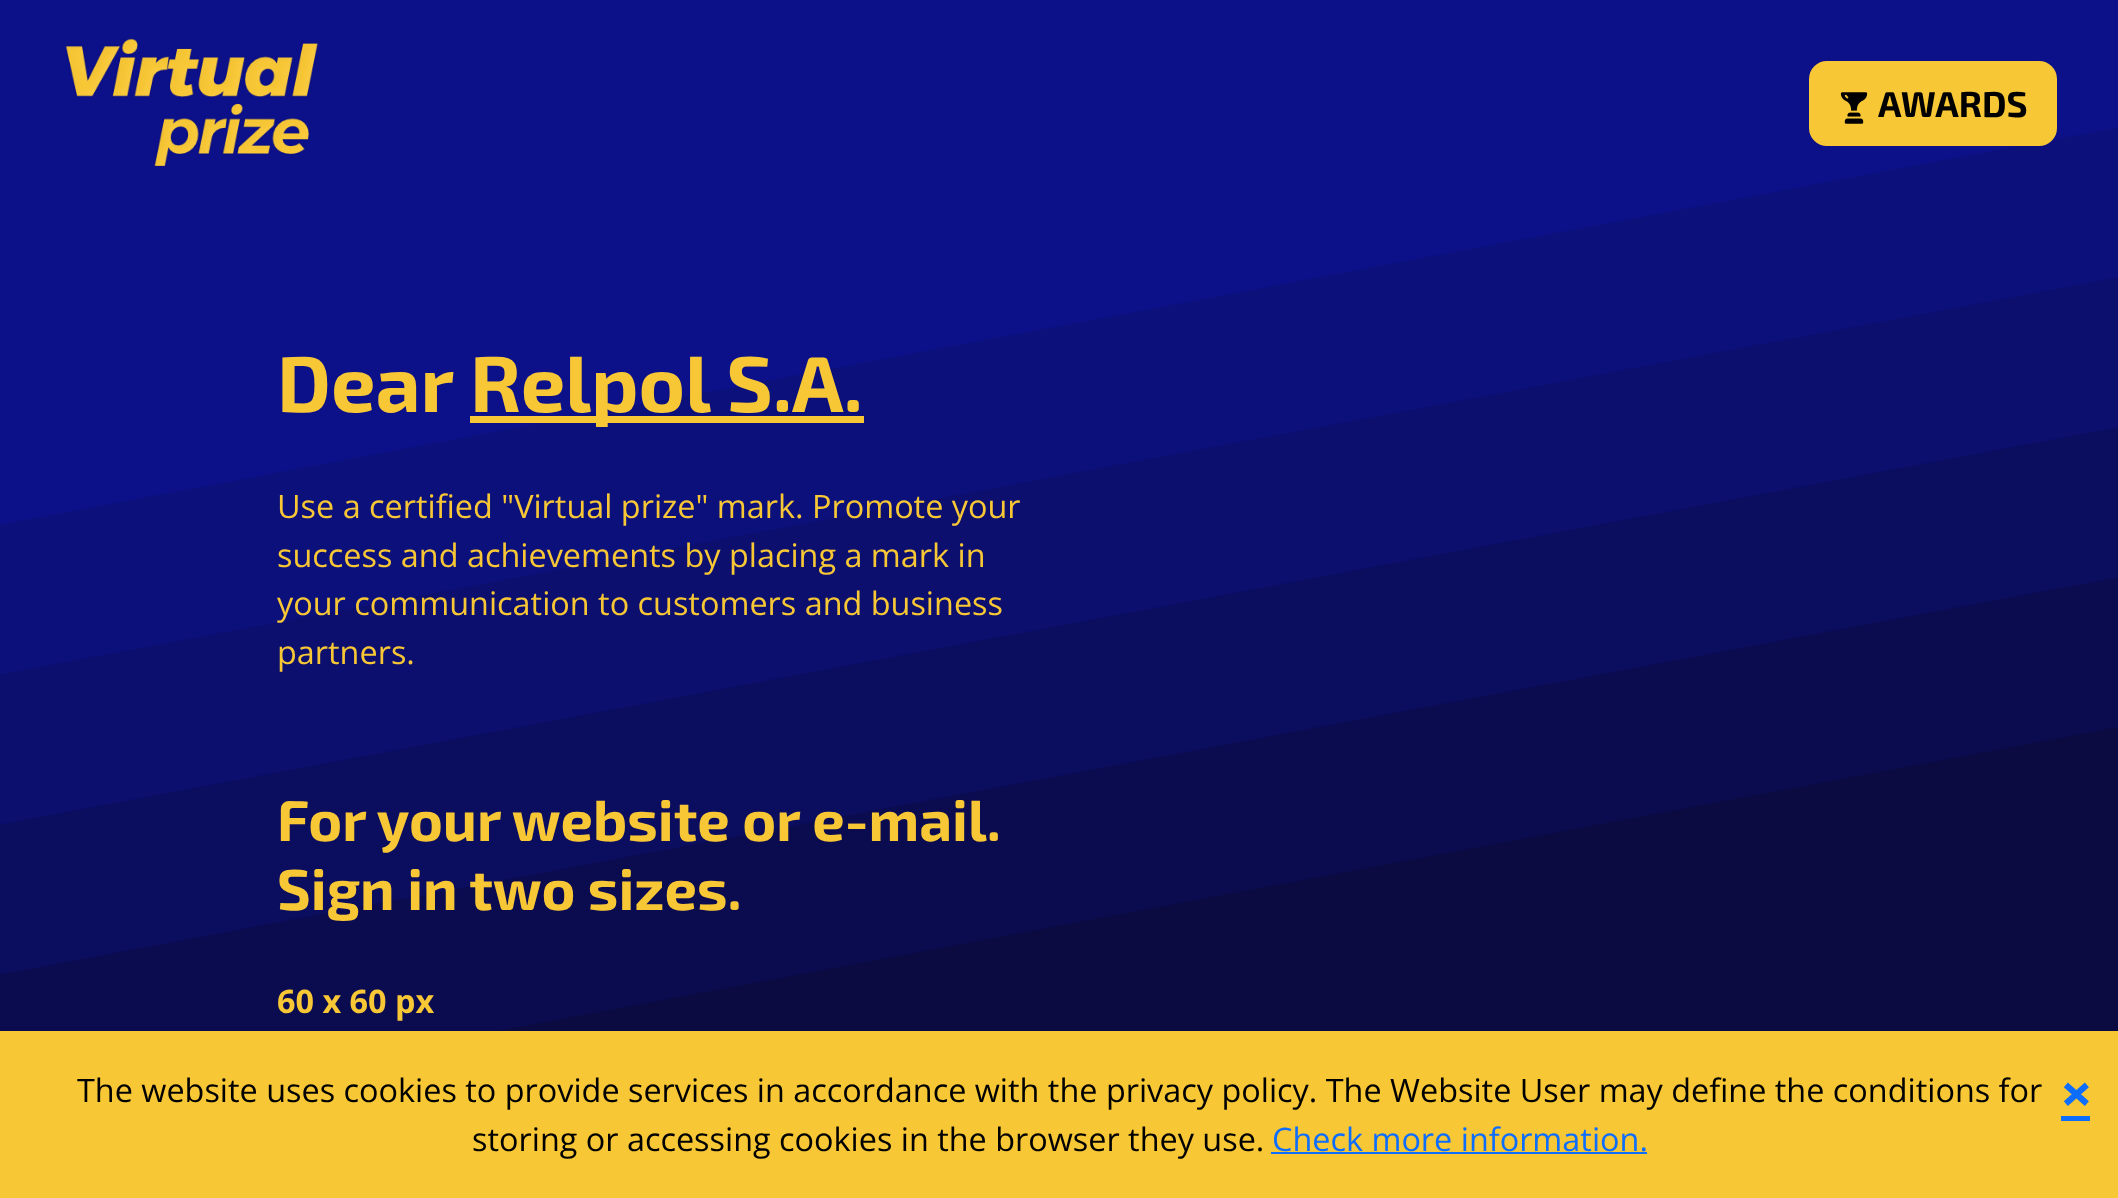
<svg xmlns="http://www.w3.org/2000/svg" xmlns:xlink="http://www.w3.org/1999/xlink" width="2118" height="1198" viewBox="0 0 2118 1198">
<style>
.cls-1{font:bold 36px 'Exo 2';fill:#000000}
.cls-2{font:bold 79px 'Exo 2';fill:#f8c735}
.cls-3{font:32.4px Open Sans;fill:#f8c735}
.cls-4{font:bold 57.6px 'Exo 2';fill:#f8c735}
.cls-5{font:bold 32.4px Open Sans;fill:#f8c735}
.cls-6{font:32.4px Open Sans;fill:#000000}
.cls-7{font:bold 57.6px 'Exo 2';fill:#0d6efd}
.cls-8{font:32.4px Open Sans;fill:#0d6efd}
</style>
<rect width="100%" height="100%" fill="#0c118a"/>
<image xlink:href="image0.png" x="0" y="127" width="2118" height="904"/>
<image xlink:href="image1.png" x="65" y="38" width="253" height="129"/>
<rect fill="#f8c735" stroke="#f8c735" stroke-width="2" x="1810" y="62" width="246" height="83" rx="17"/>
<image xlink:href="image2.png" x="1840" y="92" width="28" height="32"/>
<rect fill="#f8c735" x="470" y="416" width="394" height="7"/>
<rect fill="#f8c735" x="0" y="1031" width="2118" height="167"/>
<rect fill="#0d6efd" x="2061" y="1116" width="29" height="5"/>
<rect fill="#0d6efd" x="1271" y="1152" width="376" height="2"/>
<text class="cls-1" x="1878" y="117">AWARDS</text>
<text class="cls-2" x="277" y="412">Dear</text>
<text class="cls-2" x="470" y="412">Relpol S.A.</text>
<text class="cls-3"><tspan x="277" y="518">Use a certified "Virtual prize" mark. Promote your</tspan><tspan x="277" y="567">success and achievements by placing a mark in</tspan><tspan x="277" y="615">your communication to customers and business</tspan><tspan x="277" y="664">partners.</tspan></text>
<text class="cls-4"><tspan x="277" y="841">For your website or e-mail.</tspan><tspan x="277" y="910">Sign in two sizes.</tspan></text>
<text class="cls-5" x="277" y="1013">60 x 60 px</text>
<text class="cls-6" x="77" y="1102">The website uses cookies to provide services in accordance with the privacy policy. The Website User may define the conditions for</text>
<text class="cls-7" x="2062" y="1111">×</text>
<text class="cls-6" x="472" y="1151">storing or accessing cookies in the browser they use.</text>
<text class="cls-8" x="1272" y="1151">Check more information.</text>
</svg>
